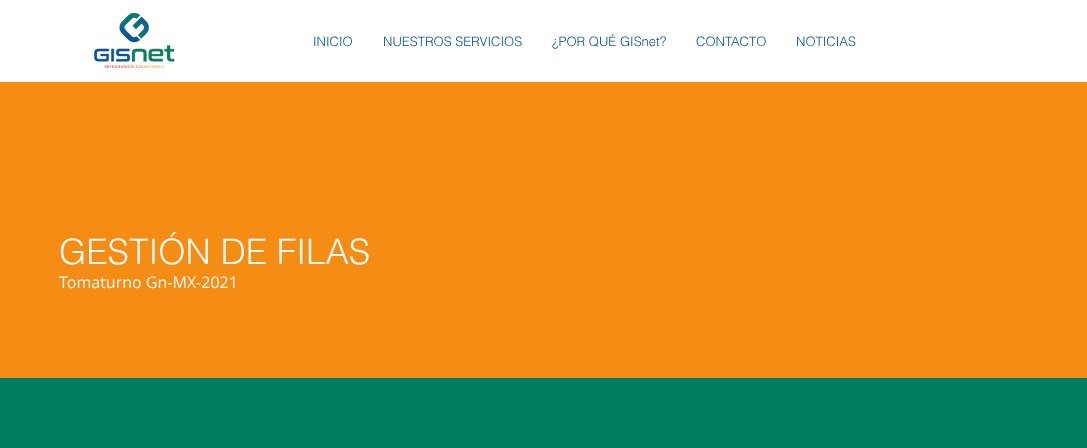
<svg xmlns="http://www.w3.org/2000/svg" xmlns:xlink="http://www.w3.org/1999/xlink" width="1087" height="448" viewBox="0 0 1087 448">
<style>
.cls-1{font:300 13px helvetica;fill:#02529a}
.cls-2{font:300 35px helvetica;fill:#fafafa}
.cls-3{font:16px Open Sans;fill:#fafafa}
</style>
<rect width="100%" height="100%" fill="#ffffff"/>
<image xlink:href="image0.png" x="94" y="13" width="81" height="55"/>
<rect fill="#f58c14" x="0" y="82" width="1087" height="296"/>
<rect fill="#007d61" x="0" y="378" width="1087" height="70"/>
<text class="cls-1" x="313" y="46">INICIO</text>
<text class="cls-1" x="383" y="46">NUESTROS SERVICIOS</text>
<text class="cls-1" x="552" y="46">¿POR QUÉ GISnet?</text>
<text class="cls-1" x="696" y="46">CONTACTO</text>
<text class="cls-1" x="796" y="46">NOTICIAS</text>
<text class="cls-2" x="59" y="264">GESTIÓN DE FILAS</text>
<text class="cls-3" x="59" y="288">Tomaturno Gn-MX-2021</text>
</svg>
